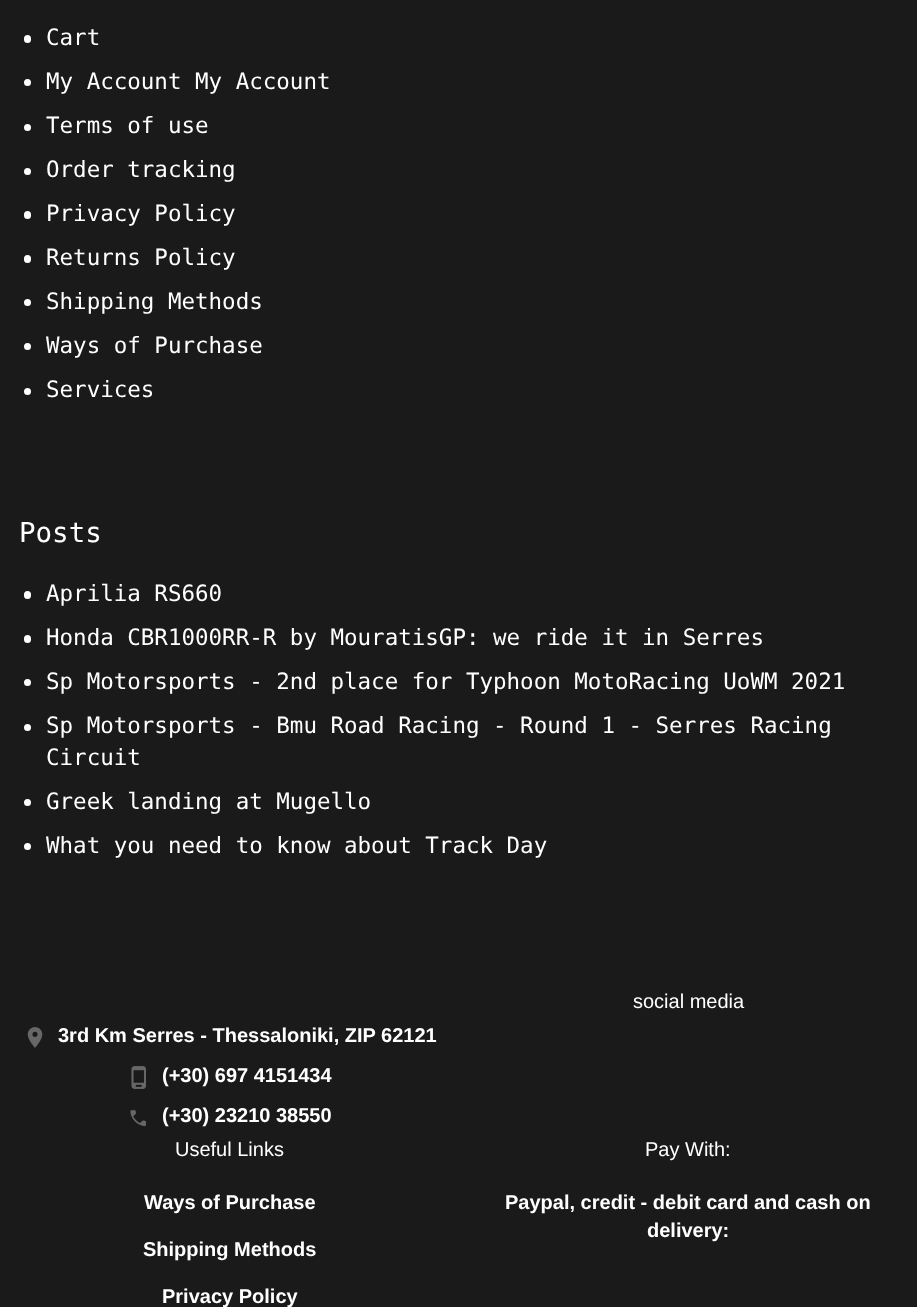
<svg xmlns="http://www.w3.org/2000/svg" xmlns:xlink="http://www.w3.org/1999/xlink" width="917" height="1307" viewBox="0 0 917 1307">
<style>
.cls-1{font:22.5px DejaVu Sans Mono;fill:#ffffff}
.cls-2{font:27.5px DejaVu Sans Mono;fill:#ffffff}
.cls-3{font:20px Liberation Sans;fill:#ffffff}
.cls-4{font:bold 20px Liberation Sans;fill:#ffffff}
</style>
<rect width="100%" height="100%" fill="#1a1a1a"/>
<rect fill="#ffffff" x="24" y="35" width="7" height="8" rx="3.5"/>
<circle fill="#ffffff" cx="27.5" cy="82.5" r="3.5"/>
<circle fill="#ffffff" cx="27.5" cy="127.5" r="3.5"/>
<circle fill="#ffffff" cx="27.5" cy="171.5" r="3.5"/>
<rect fill="#ffffff" x="24" y="211" width="7" height="8" rx="3.5"/>
<rect fill="#ffffff" x="24" y="255" width="7" height="8" rx="3.5"/>
<circle fill="#ffffff" cx="27.5" cy="302.5" r="3.5"/>
<circle fill="#ffffff" cx="27.5" cy="346.5" r="3.5"/>
<circle fill="#ffffff" cx="27.5" cy="391.5" r="3.5"/>
<rect fill="#ffffff" x="24" y="591" width="7" height="8" rx="3.5"/>
<rect fill="#ffffff" x="24" y="635" width="7" height="8" rx="3.5"/>
<circle fill="#ffffff" cx="27.5" cy="682.5" r="3.5"/>
<circle fill="#ffffff" cx="27.5" cy="727.5" r="3.5"/>
<circle fill="#ffffff" cx="27.5" cy="802.5" r="3.5"/>
<circle fill="#ffffff" cx="27.5" cy="846.5" r="3.5"/>
<image xlink:href="image0.png" x="27" y="1027" width="16" height="21"/>
<image xlink:href="image1.png" x="131" y="1066" width="15" height="23"/>
<image xlink:href="image2.png" x="130" y="1110" width="16" height="16"/>
<text class="cls-1"><tspan x="46" y="45">Cart</tspan><tspan x="46" y="89">My Account My Account</tspan><tspan x="46" y="133">Terms of use</tspan><tspan x="46" y="177">Order tracking</tspan><tspan x="46" y="221">Privacy Policy</tspan><tspan x="46" y="265">Returns Policy</tspan><tspan x="46" y="309">Shipping Methods</tspan><tspan x="46" y="353">Ways of Purchase</tspan><tspan x="46" y="397">Services</tspan></text>
<text class="cls-2" x="19" y="542">Posts</text>
<text class="cls-1"><tspan x="46" y="601">Aprilia RS660</tspan><tspan x="46" y="645">Honda CBR1000RR-R by MouratisGP: we ride it in Serres</tspan><tspan x="46" y="689">Sp Motorsports - 2nd place for Typhoon MotoRacing UoWM 2021</tspan><tspan x="46" y="733">Sp Motorsports - Bmu Road Racing - Round 1 - Serres Racing</tspan><tspan x="46" y="765">Circuit</tspan><tspan x="46" y="809">Greek landing at Mugello</tspan><tspan x="46" y="853">What you need to know about Track Day</tspan></text>
<text class="cls-3" x="633" y="1008">social media</text>
<text class="cls-4" x="58" y="1042">3rd Km Serres - Thessaloniki, ZIP 62121</text>
<text class="cls-4" x="162" y="1082">(+30) 697 4151434</text>
<text class="cls-4" x="162" y="1122">(+30) 23210 38550</text>
<text class="cls-3" x="175" y="1156">Useful Links</text>
<text class="cls-4" x="144" y="1209">Ways of Purchase</text>
<text class="cls-4" x="143" y="1256">Shipping Methods</text>
<text class="cls-4" x="162" y="1303">Privacy Policy</text>
<text class="cls-3" x="645" y="1156">Pay With:</text>
<text class="cls-4" x="505" y="1209">Paypal, credit - debit card and cash on</text>
<text class="cls-4" x="647" y="1237">delivery:</text>
</svg>
